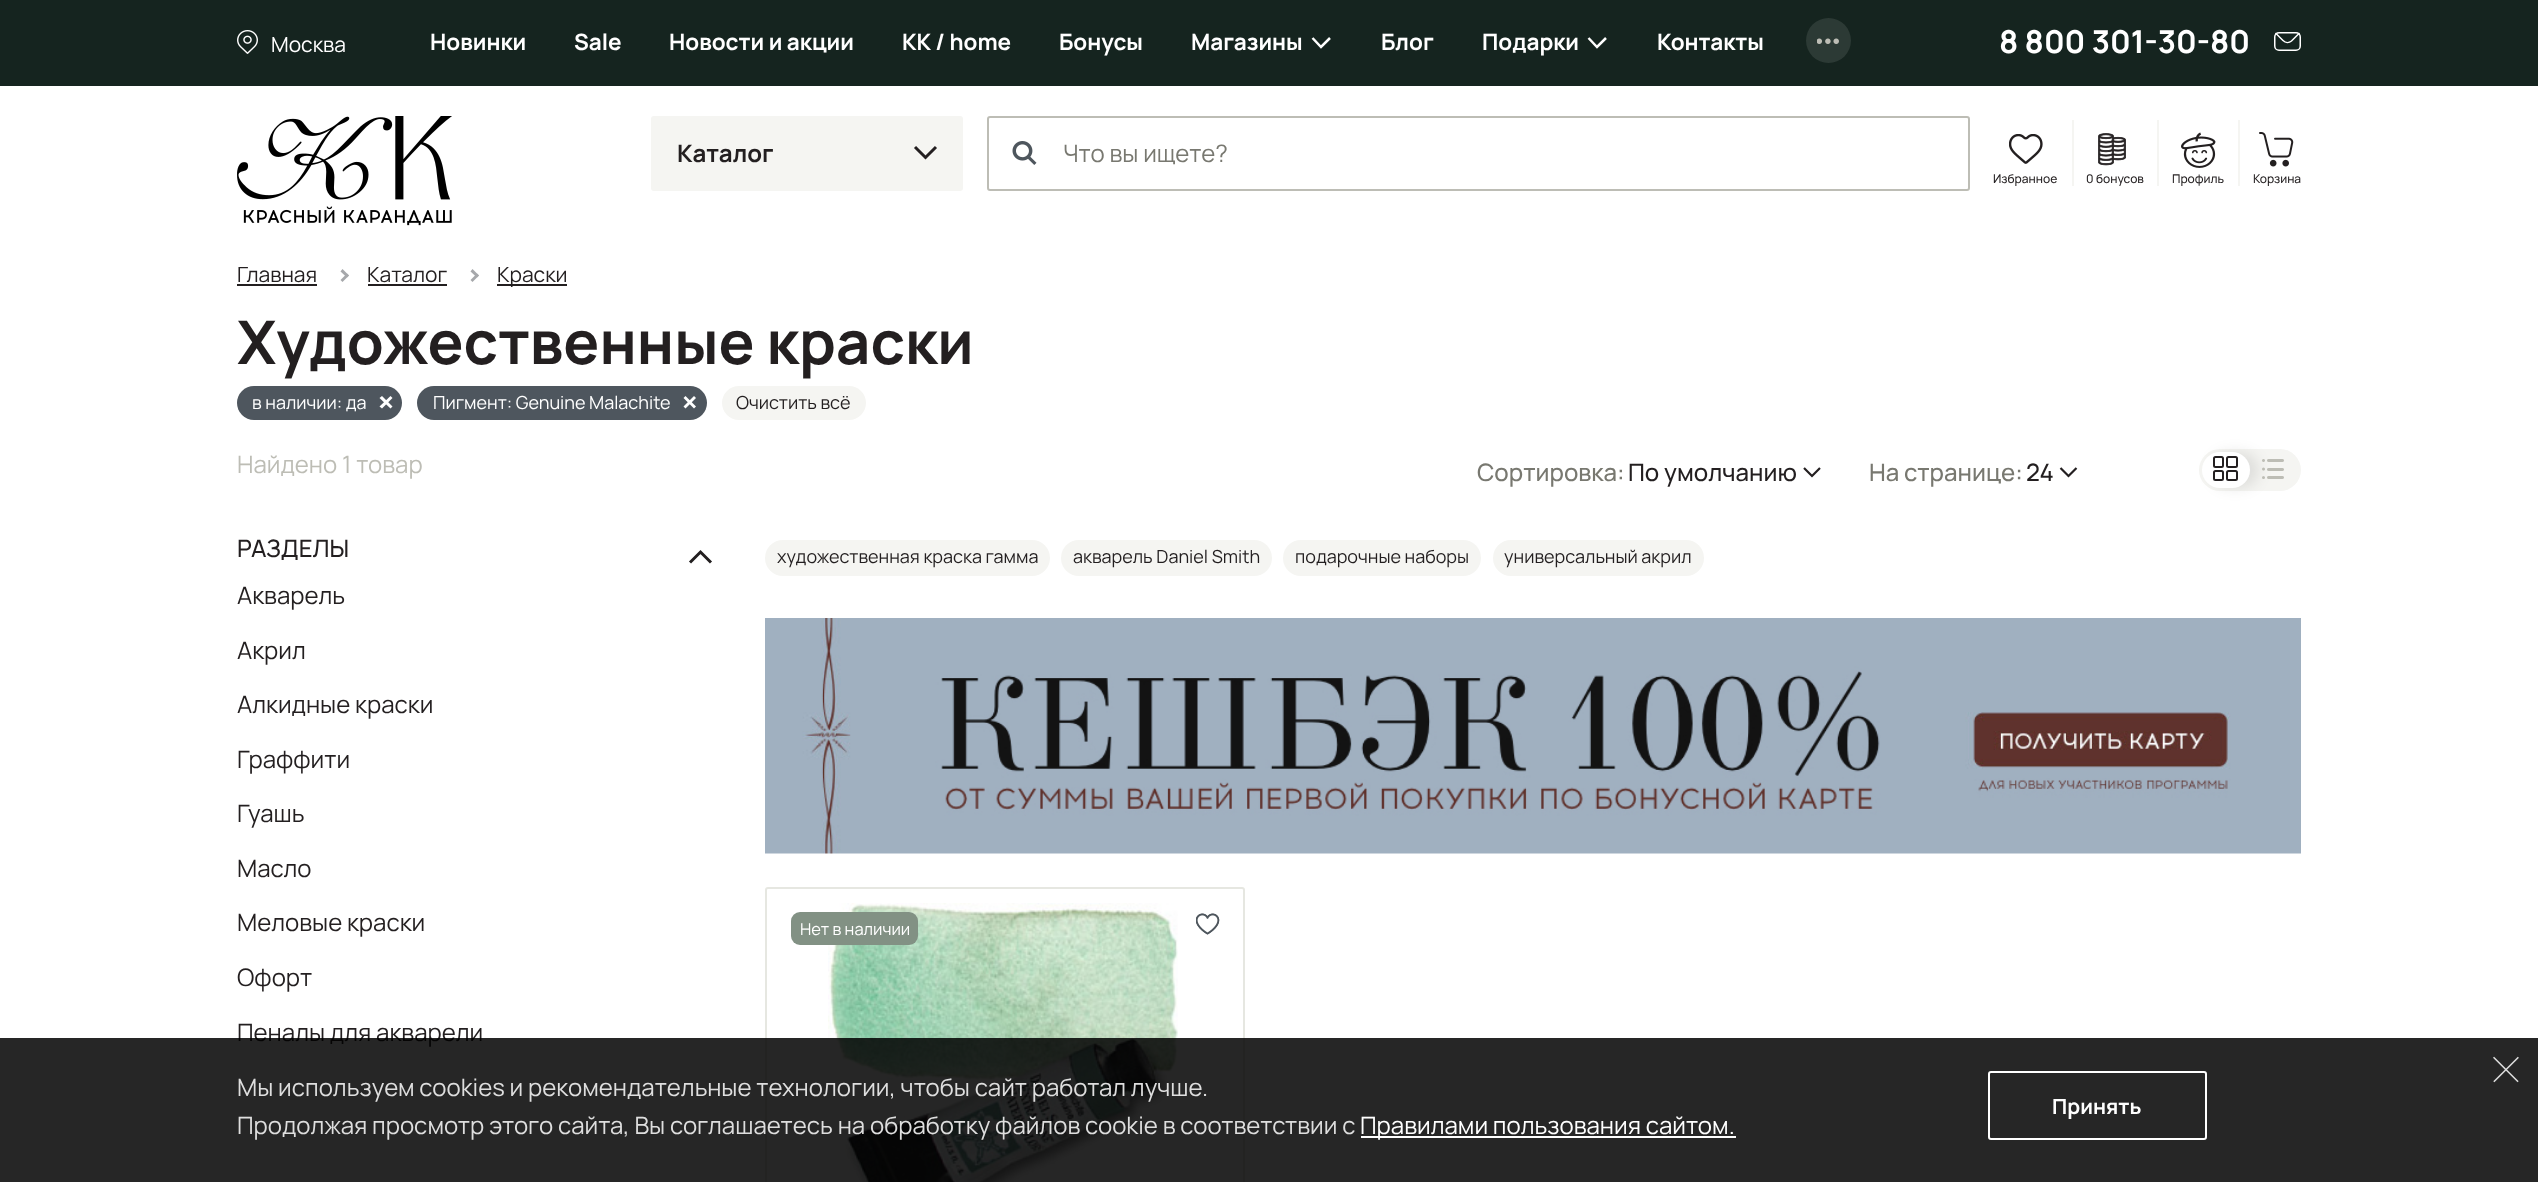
<svg xmlns="http://www.w3.org/2000/svg" xmlns:xlink="http://www.w3.org/1999/xlink" width="2538" height="1182" viewBox="0 0 2538 1182">
<style>
.cls-1{font:21px Manrope;fill:#ffffff}
.cls-2{font:bold 22.5px Manrope;fill:#ffffff}
.cls-3{font:bold 31.5px Manrope;fill:#ffffff}
.cls-4{font:bold 24px Manrope;fill:#231f20}
.cls-5{font:24px Manrope;fill:#787870}
.cls-6{font:500 12px Manrope;fill:#231f20}
.cls-7{font:21px Manrope;fill:#231f20}
.cls-8{font:bold 60px Manrope;fill:#231f20}
.cls-9{font:18px Manrope;fill:#ffffff}
.cls-10{font:18px Manrope;fill:#231f20}
.cls-11{font:24px Manrope;fill:#bdbdb5}
.cls-12{font:500 24px Manrope;fill:#787870}
.cls-13{font:500 24px Manrope;fill:#231f20}
.cls-14{font:24px Manrope;fill:#231f20}
.cls-15{font:16.5px Manrope;fill:#ffffff}
.cls-16{font:24px Manrope;fill:#dedede}
.cls-17{font:24px Manrope;fill:#ffffff}
.cls-18{font:bold 21px Manrope;fill:#ffffff}
</style>
<rect width="100%" height="100%" fill="#ffffff"/>
<rect fill="#15241f" x="0" y="0" width="2538" height="86"/>
<image xlink:href="image0.png" x="237" y="30" width="21" height="24"/>
<path fill="none" stroke="#ffffff" stroke-width="2.5" d="M1330 38L1321 47L1312.5 38"/>
<path fill="none" stroke="#ffffff" stroke-width="2.5" d="M1606 38L1597 47L1588.5 38"/>
<circle fill="#2c3a35" cx="1828.5" cy="40.5" r="22.5"/>
<image xlink:href="image1.png" x="1817" y="38" width="22" height="6"/>
<rect fill="none" stroke="#ffffff" stroke-width="1.5" x="2274.75" y="32.75" width="25.5" height="17.5" rx="4.25"/>
<path fill="none" stroke="#ffffff" stroke-width="1.5" d="M2275.5 33L2283 40.5C2285.5 43 2289 43 2291.5 41L2299.5 33"/>
<image xlink:href="image2.png" x="237" y="116" width="215" height="110"/>
<rect fill="#f5f5f2" stroke="#f5f5f2" stroke-width="2" x="652" y="117" width="310" height="73" rx="2"/>
<path fill="none" stroke="#231f20" stroke-width="3" d="M936 147L925.5 157.5L915 147"/>
<rect fill="none" stroke="#bdbdb5" stroke-width="2" x="988" y="117" width="981" height="73" rx="2"/>
<image xlink:href="image3.png" x="1012" y="141" width="25" height="24"/>
<image xlink:href="image4.png" x="2009" y="134" width="34" height="30"/>
<rect fill="#f5f5f2" x="2072" y="120" width="2" height="66"/>
<image xlink:href="image5.png" x="2098" y="133" width="28" height="33"/>
<rect fill="#f5f5f2" x="2157" y="120" width="2" height="66"/>
<image xlink:href="image6.png" x="2181" y="132" width="35" height="36"/>
<rect fill="#f5f5f2" x="2238" y="120" width="2" height="66"/>
<image xlink:href="image7.png" x="2259" y="132" width="35" height="35"/>
<rect fill="#231f20" x="237" y="284" width="80" height="2"/>
<path fill="#a6a8ab" d="M340.5 271.5L342.5 269L349 275.5L347 277.5Z"/>
<path fill="#a6a8ab" d="M340.5 280L347 273.5L349 275.5L342.5 282Z"/>
<rect fill="#231f20" x="368" y="284" width="79" height="2"/>
<path fill="#a6a8ab" d="M470.5 271.5L472.5 269L479 275.5L477 277.5Z"/>
<path fill="#a6a8ab" d="M470.5 280L477 273.5L479 275.5L472.5 282Z"/>
<rect fill="#231f20" x="497" y="284" width="70" height="2"/>
<rect fill="#4e565e" x="237" y="386" width="165" height="34" rx="17"/>
<path fill="#ffffff" d="M382 396L392.5 406.5L390.5 408.5L379.5 398Z"/>
<path fill="#ffffff" d="M379.5 406.5L390.5 396L392.5 398L382 408.5Z"/>
<rect fill="#4e565e" x="417" y="386" width="290" height="34" rx="17"/>
<path fill="#ffffff" d="M685.5 396L696 406.5L694 408.5L683.5 398Z"/>
<path fill="#ffffff" d="M683.5 406.5L694 396L696 398L685.5 408.5Z"/>
<rect fill="#f5f5f2" x="722" y="386" width="144" height="34" rx="17"/>
<path fill="none" stroke="#231f20" stroke-width="2.2" d="M1820 468L1812 476L1804 468"/>
<path fill="none" stroke="#231f20" stroke-width="2.2" d="M2076.5 468L2068.5 476L2060.5 468"/>
<rect fill="#f5f5f2" x="2199" y="449" width="102" height="42" rx="21"/>
<rect fill="#000000" fill-opacity="0.09" filter="blur(7px)" x="2211" y="452" width="48" height="36" rx="18"/>
<rect fill="#ffffff" x="2202" y="452" width="48" height="36" rx="18"/>
<rect fill="none" stroke="#231f20" stroke-width="2" x="2214" y="457" width="9" height="10" rx="1.5"/>
<rect fill="none" stroke="#231f20" stroke-width="2" x="2214" y="471" width="9" height="9" rx="1.5"/>
<rect fill="none" stroke="#231f20" stroke-width="2" x="2227" y="471" width="10" height="9" rx="1.5"/>
<rect fill="none" stroke="#231f20" stroke-width="2" x="2227" y="457" width="10" height="10" rx="1.5"/>
<image xlink:href="image8.png" x="2262" y="459" width="22" height="20"/>
<path fill="none" stroke="#231f20" stroke-width="3" d="M690 562.5L700.5 552L711 562.5"/>
<rect fill="#f5f5f2" x="765" y="540" width="285" height="36" rx="18"/>
<rect fill="#f5f5f2" x="1061" y="540" width="211" height="36" rx="18"/>
<rect fill="#f5f5f2" x="1283" y="540" width="198" height="36" rx="18"/>
<rect fill="#f5f5f2" x="1493" y="540" width="211" height="36" rx="18"/>
<image xlink:href="image9.png" x="765" y="618" width="1536" height="236"/>
<rect fill="none" stroke="#e6e7e1" stroke-width="2" x="766" y="888" width="478" height="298" rx="2"/>
<image xlink:href="image10.png" x="828" y="903" width="350" height="279"/>
<image xlink:href="image11.png" x="1196" y="913" width="24" height="22"/>
<rect fill="#829184" x="791" y="912" width="127" height="33" rx="9"/>
<image xlink:href="image12.png" x="1196" y="913" width="24" height="22"/>
<text class="cls-1" x="271" y="52">Москва</text>
<text class="cls-2" x="430" y="50">Новинки</text>
<text class="cls-2" x="574" y="50">Sale</text>
<text class="cls-2" x="669" y="50">Новости и акции</text>
<text class="cls-2" x="902" y="50">КК / home</text>
<text class="cls-2" x="1059" y="50">Бонусы</text>
<text class="cls-2" x="1191" y="50">Магазины</text>
<text class="cls-2" x="1381" y="50">Блог</text>
<text class="cls-2" x="1482" y="50">Подарки</text>
<text class="cls-2" x="1657" y="50">Контакты</text>
<text class="cls-3" x="1999" y="53">8 800 301-30-80</text>
<text class="cls-4" x="677" y="162">Каталог</text>
<text class="cls-5" x="1063" y="162">Что вы ищете?</text>
<text class="cls-6" x="1993" y="183">Избранное</text>
<text class="cls-6" x="2086" y="183">0 бонусов</text>
<text class="cls-6" x="2172" y="183">Профиль</text>
<text class="cls-6" x="2253" y="183">Корзина</text>
<text class="cls-7" x="237" y="282">Главная</text>
<text class="cls-7" x="367" y="282">Каталог</text>
<text class="cls-7" x="497" y="282">Краски</text>
<text class="cls-8" x="237" y="364">Художественные краски</text>
<text class="cls-9" x="252" y="409">в наличии: да</text>
<text class="cls-9" x="433" y="409">Пигмент: Genuine Malachite</text>
<text class="cls-10" x="736" y="409">Очистить всё</text>
<text class="cls-11" x="237" y="473">Найдено 1 товар</text>
<text class="cls-12" x="1477" y="481">Сортировка:</text>
<text class="cls-13" x="1628" y="481">По умолчанию</text>
<text class="cls-12" x="1869" y="481">На странице:</text>
<text class="cls-13" x="2026" y="481">24</text>
<text class="cls-13" x="237" y="557">РАЗДЕЛЫ</text>
<text class="cls-14" x="237" y="604">Акварель</text>
<text class="cls-14" x="237" y="659">Акрил</text>
<text class="cls-14" x="237" y="713">Алкидные краски</text>
<text class="cls-14" x="237" y="768">Граффити</text>
<text class="cls-14" x="237" y="822">Гуашь</text>
<text class="cls-14" x="237" y="877">Масло</text>
<text class="cls-14" x="237" y="931">Меловые краски</text>
<text class="cls-14" x="237" y="986">Офорт</text>
<text class="cls-14" x="237" y="1041">Пеналы для акварели</text>
<text class="cls-10" x="777" y="563">художественная краска гамма</text>
<text class="cls-10" x="1073" y="563">акварель Daniel Smith</text>
<text class="cls-10" x="1295" y="563">подарочные наборы</text>
<text class="cls-10" x="1504" y="563">универсальный акрил</text>
<text class="cls-15" x="800" y="935">Нет в наличии</text>
<rect fill="#000000" fill-opacity="0.85" x="0" y="1038" width="2538" height="144"/>
<image xlink:href="image13.png" x="2493" y="1056" width="26" height="27"/>
<text class="cls-16"><tspan x="237" y="1096">Мы используем cookies и рекомендательные технологии, чтобы сайт работал лучше.</tspan><tspan x="237" y="1134">Продолжая просмотр этого сайта, Вы соглашаетесь на обработку файлов cookie в соответствии с</tspan></text>
<rect fill="#ffffff" x="1361" y="1136" width="375" height="2"/>
<text class="cls-17" x="1360" y="1134">Правилами пользования сайтом.</text>
<rect fill="none" stroke="#ffffff" stroke-width="2" x="1989" y="1072" width="217" height="67" rx="2"/>
<text class="cls-18" x="2052" y="1114">Принять</text>
</svg>
